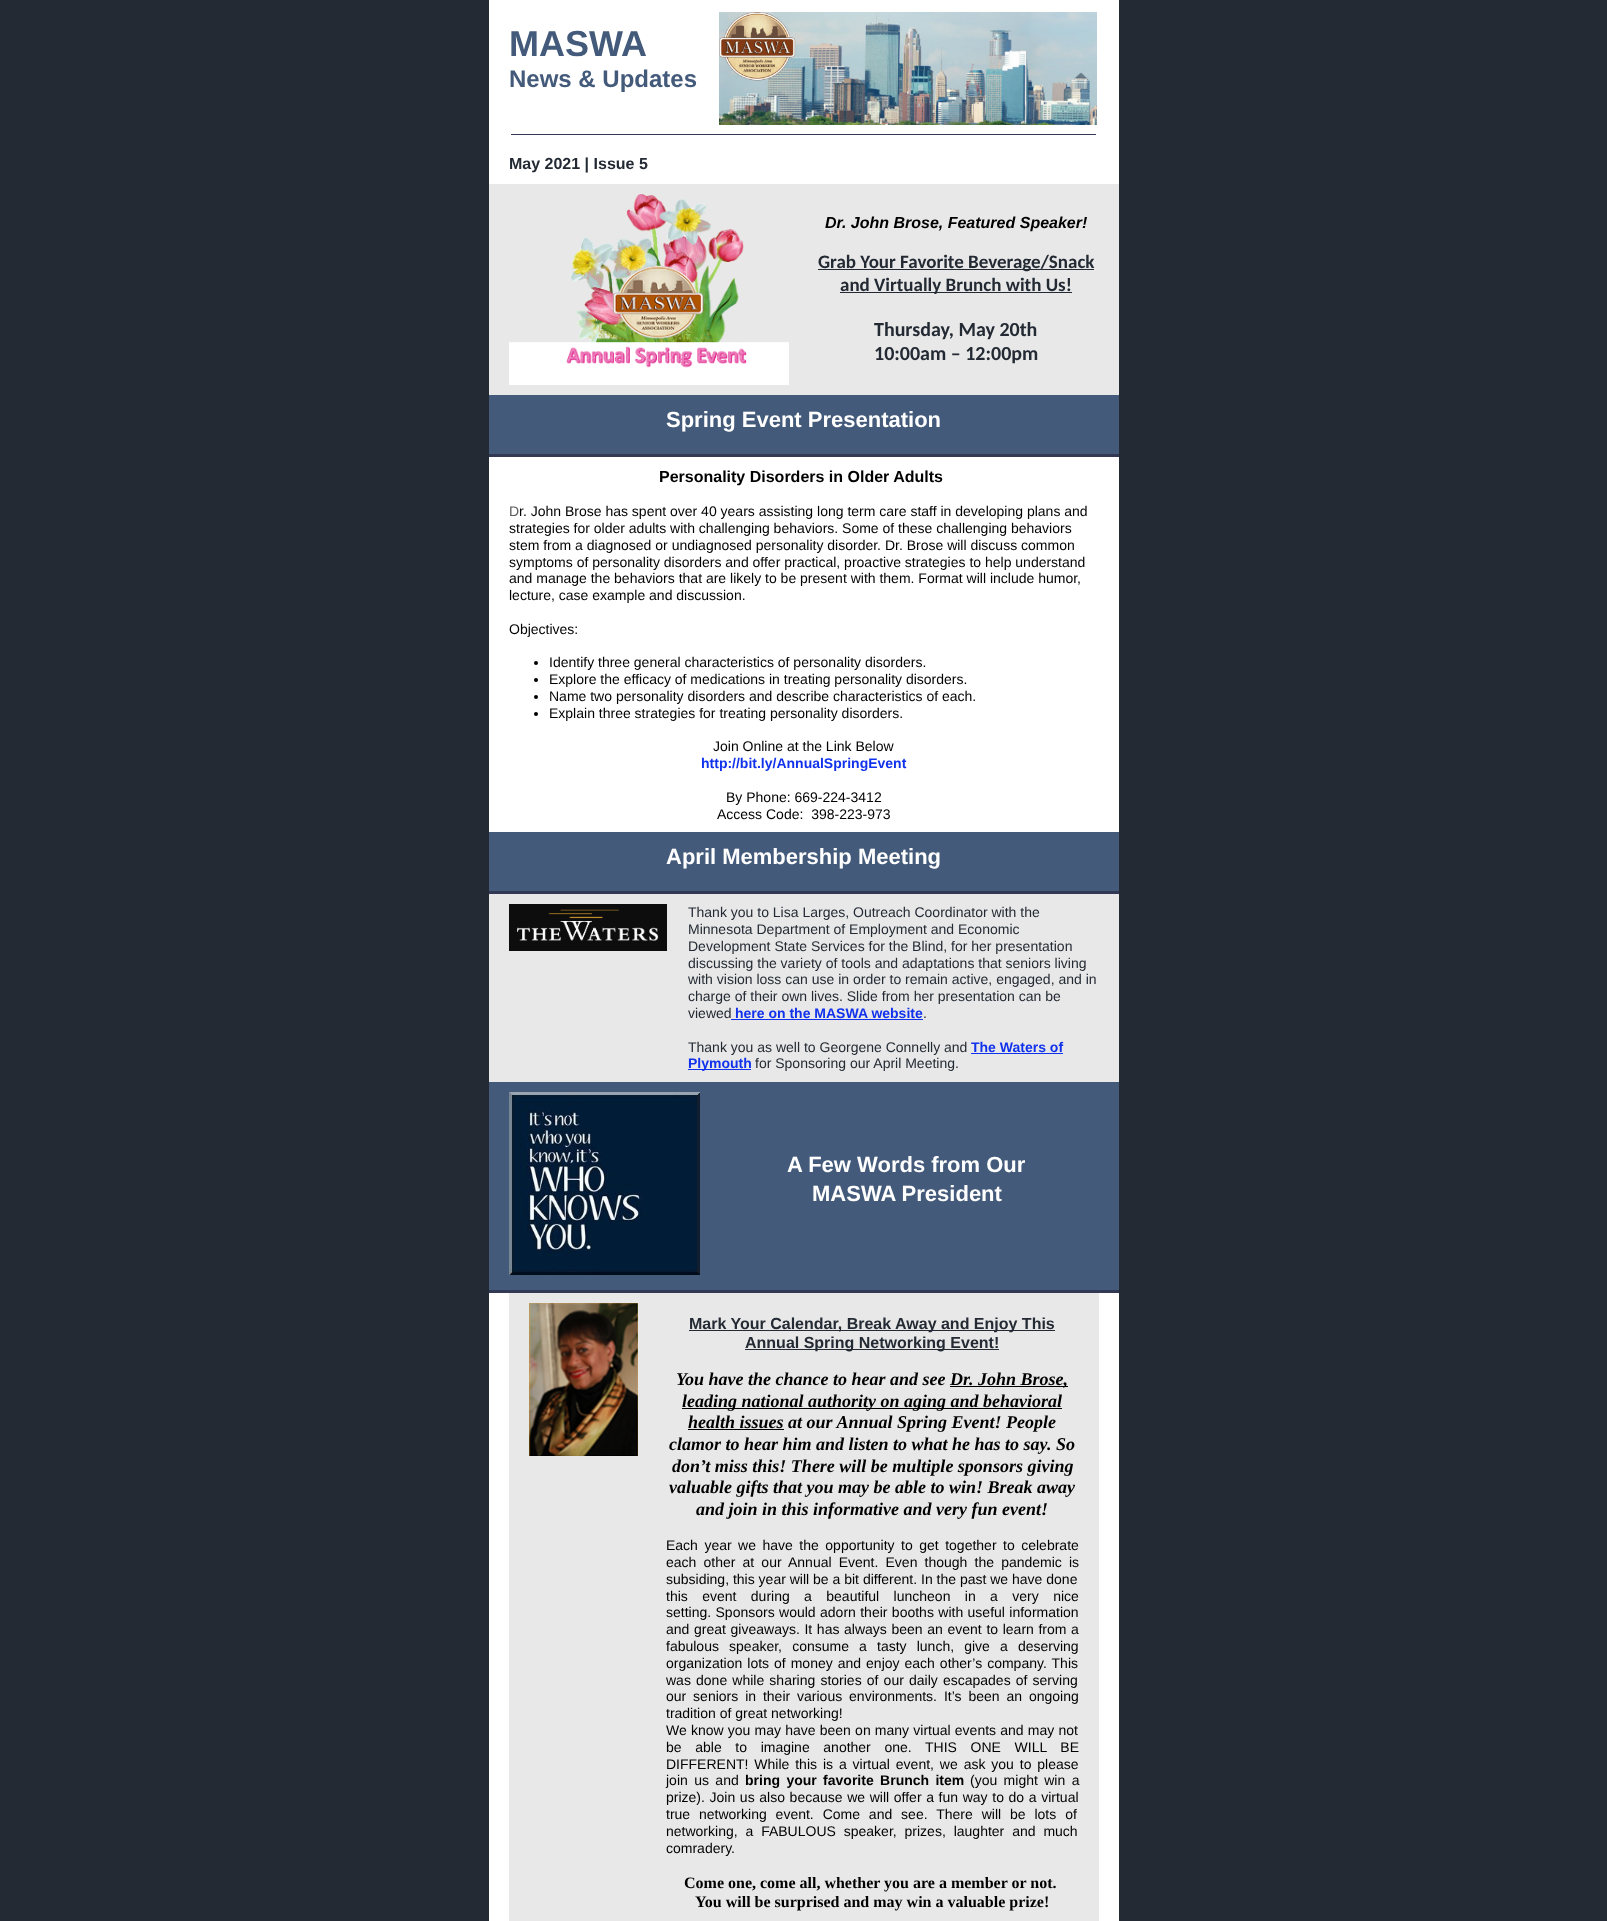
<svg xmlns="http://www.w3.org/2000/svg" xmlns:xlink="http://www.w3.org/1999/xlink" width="1607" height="1921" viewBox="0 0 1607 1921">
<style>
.cls-1{font:bold 36px Liberation Sans;fill:#435a7a}
.cls-2{font:bold 24px Liberation Sans;fill:#435a7a}
.cls-3{font:bold 16px Liberation Sans;fill:#232a33}
.cls-4{font:italic bold 16px Liberation Sans;fill:#000000}
.cls-5{font:bold 19px Carlito;fill:#232a33}
.cls-6{font:bold 20px Carlito;fill:#232a33}
.cls-7{font:bold 22px Liberation Sans;fill:#ffffff}
.cls-8{font:bold 16px Liberation Sans;fill:#000000}
.cls-9{font:14px Liberation Sans;fill:#5b5b5b}
.cls-10{font:14px Liberation Sans;fill:#000000}
.cls-11{font:bold 14px Liberation Sans;fill:#1132ed}
.cls-12{font:14px Liberation Sans;fill:#232a33}
.cls-13{font:italic bold 18px Liberation Serif;fill:#000000}
.cls-14{font:bold 14px Liberation Sans;fill:#000000}
.cls-15{font:bold 16px Liberation Serif;fill:#000000}
</style>
<rect width="100%" height="100%" fill="#232a33"/>
<rect fill="#ffffff" x="489" y="0" width="630" height="1921"/>
<image xlink:href="image0.png" x="719" y="12" width="378" height="113"/>
<rect fill="#323954" x="511" y="134" width="585" height="1"/>
<rect fill="#e8e8e8" x="489" y="184" width="630" height="211"/>
<image xlink:href="image1.png" x="509" y="194" width="280" height="191"/>
<rect fill="#232a33" x="818" y="269" width="276" height="1"/>
<rect fill="#232a33" x="840" y="292" width="232" height="1"/>
<rect fill="#435a7a" x="489" y="395" width="630" height="59"/>
<rect fill="#323954" x="489" y="454" width="630" height="3"/>
<circle fill="#000000" cx="536" cy="663" r="2"/>
<circle fill="#000000" cx="536" cy="680" r="2"/>
<circle fill="#000000" cx="536" cy="697" r="2"/>
<circle fill="#000000" cx="536" cy="714" r="2"/>
<rect fill="#435a7a" x="489" y="832" width="630" height="59"/>
<rect fill="#323954" x="489" y="891" width="630" height="3"/>
<rect fill="#e8e8e8" x="489" y="894" width="630" height="188"/>
<image xlink:href="image2.png" x="509" y="904" width="158" height="47"/>
<rect fill="#1132ed" x="731" y="1019" width="192" height="1"/>
<rect fill="#1132ed" x="971" y="1053" width="92" height="1"/>
<rect fill="#1132ed" x="688" y="1069" width="63" height="1"/>
<rect fill="#435a7a" x="489" y="1082" width="630" height="208"/>
<image xlink:href="image3.png" x="509" y="1092" width="191" height="183"/>
<rect fill="#323954" x="489" y="1290" width="630" height="3"/>
<rect fill="#e8e8e8" x="509" y="1293" width="590" height="628"/>
<image xlink:href="image4.png" x="529" y="1303" width="109" height="153"/>
<rect fill="#232a33" x="689" y="1330" width="366" height="1"/>
<rect fill="#232a33" x="745" y="1349" width="254" height="1"/>
<rect fill="#000000" x="950" y="1386" width="118" height="1"/>
<rect fill="#000000" x="682" y="1408" width="380" height="1"/>
<rect fill="#000000" x="688" y="1429" width="96" height="1"/>
<text class="cls-1" x="509" y="56">MASWA</text>
<text class="cls-2" x="509" y="87">News &amp; Updates</text>
<text class="cls-3" x="509" y="169">May 2021 | Issue 5</text>
<text class="cls-4" x="825" y="228">Dr. John Brose, Featured Speaker!</text>
<text class="cls-5" x="818" y="268">Grab Your Favorite Beverage/Snack</text>
<text class="cls-5" x="840" y="291">and Virtually Brunch with Us!</text>
<text class="cls-6"><tspan x="874" y="336">Thursday, May 20th</tspan><tspan x="874" y="360">10:00am – 12:00pm</tspan></text>
<text class="cls-7" x="666" y="427">Spring Event Presentation</text>
<text class="cls-8" x="659" y="482">Personality Disorders in Older Adults</text>
<text class="cls-9" x="509" y="516">D</text>
<text class="cls-10" x="519" y="516">r. John Brose has spent over 40 years assisting long term care staff in developing plans and</text>
<text class="cls-10"><tspan x="509" y="533">strategies for older adults with challenging behaviors. Some of these challenging behaviors</tspan><tspan x="509" y="550">stem from a diagnosed or undiagnosed personality disorder. Dr. Brose will discuss common</tspan><tspan x="509" y="567">symptoms of personality disorders and offer practical, proactive strategies to help understand</tspan><tspan x="509" y="583">and manage the behaviors that are likely to be present with them. Format will include humor,</tspan><tspan x="509" y="600">lecture, case example and discussion.</tspan></text>
<text class="cls-10" x="509" y="634">Objectives:</text>
<text class="cls-10"><tspan x="549" y="667">Identify three general characteristics of personality disorders.</tspan><tspan x="549" y="684">Explore the efficacy of medications in treating personality disorders.</tspan><tspan x="549" y="701">Name two personality disorders and describe characteristics of each.</tspan><tspan x="549" y="718">Explain three strategies for treating personality disorders.</tspan></text>
<text class="cls-10" x="713" y="751">Join Online at the Link Below</text>
<text class="cls-11" x="701" y="768">http://bit.ly/AnnualSpringEvent</text>
<text class="cls-10" x="726" y="802">By Phone: 669-224-3412</text>
<text class="cls-10" xml:space="preserve" x="717" y="819">Access Code:  398-223-973</text>
<text class="cls-7" x="666" y="864">April Membership Meeting</text>
<text class="cls-12"><tspan x="688" y="917">Thank you to Lisa Larges, Outreach Coordinator with the</tspan><tspan x="688" y="934">Minnesota Department of Employment and Economic</tspan><tspan x="688" y="951">Development State Services for the Blind, for her presentation</tspan><tspan x="688" y="968">discussing the variety of tools and adaptations that seniors living</tspan><tspan x="688" y="984">with vision loss can use in order to remain active, engaged, and in</tspan><tspan x="688" y="1001">charge of their own lives. Slide from her presentation can be</tspan><tspan x="688" y="1018">viewed</tspan></text>
<text class="cls-11" x="735" y="1018">here on the MASWA website</text>
<text class="cls-12" x="923" y="1018">.</text>
<text class="cls-12" x="688" y="1052">Thank you as well to Georgene Connelly and</text>
<text class="cls-11" x="971" y="1052">The Waters of</text>
<text class="cls-11" x="688" y="1068">Plymouth</text>
<text class="cls-12" x="755" y="1068">for Sponsoring our April Meeting.</text>
<text class="cls-7" x="787" y="1172">A Few Words from Our</text>
<text class="cls-7" x="812" y="1201">MASWA President</text>
<text class="cls-3" x="689" y="1329">Mark Your Calendar, Break Away and Enjoy This</text>
<text class="cls-3" x="745" y="1348">Annual Spring Networking Event!</text>
<text class="cls-13" x="676" y="1385">You have the chance to hear and see</text>
<text class="cls-13" x="950" y="1385">Dr. John Brose,</text>
<text class="cls-13" x="682" y="1407">leading national authority on aging and behavioral</text>
<text class="cls-13" x="688" y="1428">health issues at our Annual Spring Event! People</text>
<text class="cls-13" x="669" y="1450">clamor to hear him and listen to what he has to say. So</text>
<text class="cls-13" x="672" y="1472">don’t miss this! There will be multiple sponsors giving</text>
<text class="cls-13" x="669" y="1493">valuable gifts that you may be able to win! Break away</text>
<text class="cls-13" x="696" y="1515">and join in this informative and very fun event!</text>
<text class="cls-10"><tspan x="666" y="1550" word-spacing="2.6">Each year we have the opportunity to get together to celebrate</tspan><tspan x="666" y="1567" word-spacing="3.25">each other at our Annual Event. Even though the pandemic is</tspan><tspan x="666" y="1584">subsiding, this year will be a bit different. In the past we have done</tspan><tspan x="666" y="1601" word-spacing="10.5">this event during a beautiful luncheon in a very nice</tspan><tspan x="666" y="1617" word-spacing="0.5">setting. Sponsors would adorn their booths with useful information</tspan><tspan x="666" y="1634" word-spacing="0.75">and great giveaways. It has always been an event to learn from a</tspan><tspan x="666" y="1651" word-spacing="6.25">fabulous speaker, consume a tasty lunch, give a deserving</tspan><tspan x="666" y="1668" word-spacing="1.1">organization lots of money and enjoy each other’s company. This</tspan><tspan x="666" y="1685" word-spacing="1.25">was done while sharing stories of our daily escapades of serving</tspan><tspan x="666" y="1701" word-spacing="3">our seniors in their various environments. It’s been an ongoing</tspan><tspan x="666" y="1718">tradition of great networking!</tspan><tspan x="666" y="1735" word-spacing="0.3">We know you may have been on many virtual events and may not</tspan><tspan x="666" y="1752" word-spacing="9.75">be able to imagine another one. THIS ONE WILL BE</tspan><tspan x="666" y="1769" word-spacing="2">DIFFERENT! While this is a virtual event, we ask you to please</tspan><tspan x="666" y="1785" word-spacing="2.5">join us and</tspan></text>
<text class="cls-14" x="745" y="1785" word-spacing="2.5">bring your favorite Brunch item</text>
<text class="cls-10" x="970" y="1785" word-spacing="2.5">(you might win a</text>
<text class="cls-10"><tspan x="666" y="1802" word-spacing="0.75">prize). Join us also because we will offer a fun way to do a virtual</tspan><tspan x="666" y="1819" word-spacing="5">true networking event. Come and see. There will be lots of</tspan><tspan x="666" y="1836" word-spacing="4">networking, a FABULOUS speaker, prizes, laughter and much</tspan><tspan x="666" y="1853">comradery.</tspan></text>
<text class="cls-15" x="684" y="1888">Come one, come all, whether you are a member or not.</text>
<text class="cls-15" x="695" y="1907">You will be surprised and may win a valuable prize!</text>
</svg>
